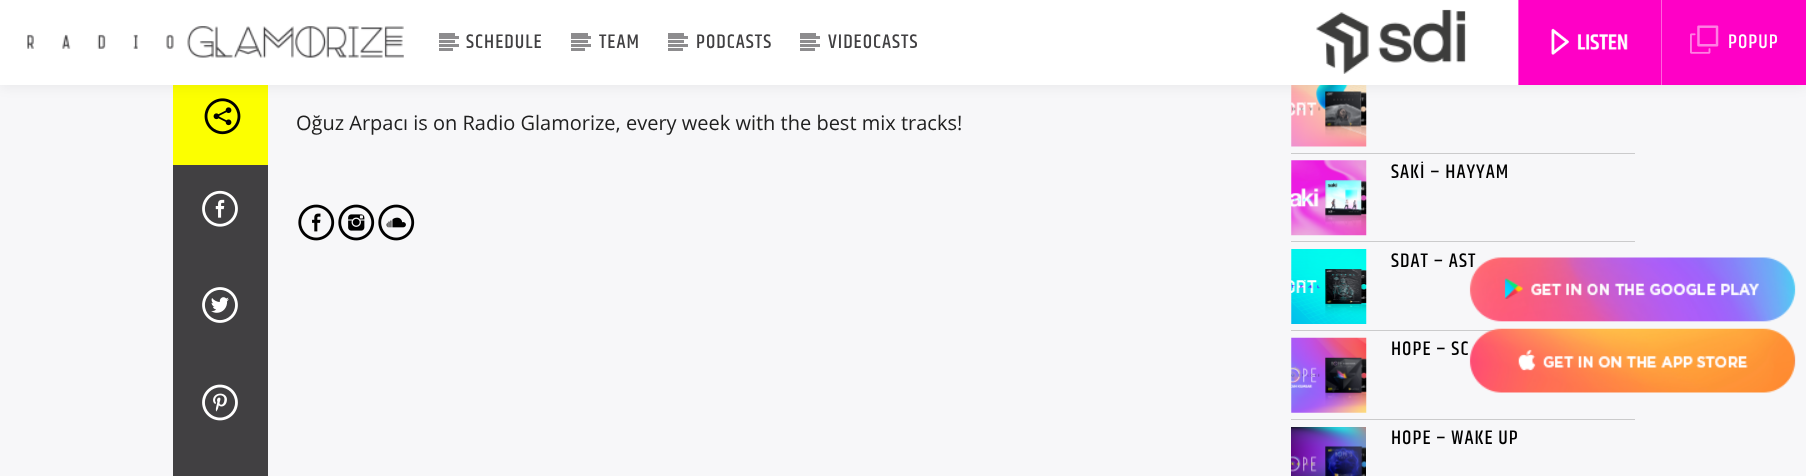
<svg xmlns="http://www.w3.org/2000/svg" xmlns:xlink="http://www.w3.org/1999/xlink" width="1806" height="476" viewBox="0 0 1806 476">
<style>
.cls-1{font:500 20px Khand;letter-spacing:1px;fill:#414042}
.cls-2{font:500 20px Khand;letter-spacing:1px;fill:#ffffff}
.cls-3{font:20px Open Sans;fill:#202020}
.cls-4{font:500 20px Khand;letter-spacing:1px;fill:#000000}
</style>
<rect width="100%" height="100%" fill="#f7f7f9"/>
<rect fill="#fcff00" x="173" y="85" width="95" height="80"/>
<image xlink:href="image4.png" x="204" y="98" width="37" height="37"/>
<image xlink:href="image11.png" x="1291" y="85" width="76" height="62"/>
<rect fill="#000000" fill-opacity="0.05" filter="blur(6px)" x="0" y="3" width="1806" height="85"/>
<rect fill="#ffffff" x="0" y="0" width="1518" height="85"/>
<image xlink:href="image0.png" x="27" y="26" width="377" height="32"/>
<rect fill="#8d8c8e" x="439" y="33" width="16" height="3"/>
<rect fill="#8d8c8e" x="439" y="40" width="16" height="3"/>
<rect fill="#8d8c8e" x="439" y="36" width="20" height="3"/>
<rect fill="#8d8c8e" x="439" y="44" width="20" height="3"/>
<rect fill="#8d8c8e" x="439" y="48" width="14" height="3"/>
<rect fill="#8d8c8e" x="571" y="33" width="17" height="3"/>
<rect fill="#8d8c8e" x="571" y="40" width="17" height="3"/>
<rect fill="#8d8c8e" x="571" y="36" width="20" height="3"/>
<rect fill="#8d8c8e" x="571" y="44" width="20" height="3"/>
<rect fill="#8d8c8e" x="571" y="48" width="14" height="3"/>
<rect fill="#8d8c8e" x="668" y="33" width="16" height="3"/>
<rect fill="#8d8c8e" x="668" y="40" width="16" height="3"/>
<rect fill="#8d8c8e" x="668" y="36" width="20" height="3"/>
<rect fill="#8d8c8e" x="668" y="44" width="20" height="3"/>
<rect fill="#8d8c8e" x="668" y="48" width="15" height="3"/>
<rect fill="#8d8c8e" x="800" y="33" width="16" height="3"/>
<rect fill="#8d8c8e" x="800" y="40" width="16" height="3"/>
<rect fill="#8d8c8e" x="800" y="36" width="20" height="3"/>
<rect fill="#8d8c8e" x="800" y="44" width="20" height="3"/>
<rect fill="#8d8c8e" x="800" y="48" width="15" height="3"/>
<image xlink:href="image1.png" x="1316" y="9" width="150" height="65"/>
<rect fill="#ff00c6" x="1519" y="0" width="142" height="85"/>
<rect fill="#ff61dc" x="1518" y="0" width="1" height="85"/>
<image xlink:href="image2.png" x="1551" y="28" width="77" height="27"/>
<rect fill="#ff00c6" x="1662" y="0" width="144" height="85"/>
<rect fill="#ff61dc" x="1661" y="0" width="1" height="85"/>
<image xlink:href="image3.png" x="1690" y="25" width="29" height="29"/>
<rect fill="#414042" x="173" y="165" width="95" height="311"/>
<image xlink:href="image5.png" x="202" y="190" width="36" height="37"/>
<image xlink:href="image6.png" x="202" y="287" width="36" height="36"/>
<image xlink:href="image7.png" x="202" y="384" width="36" height="37"/>
<image xlink:href="image8.png" x="298" y="204" width="37" height="37"/>
<image xlink:href="image9.png" x="338" y="204" width="37" height="37"/>
<image xlink:href="image10.png" x="378" y="204" width="37" height="37"/>
<rect fill="#cbcbcc" x="1291" y="153" width="344" height="1"/>
<rect fill="#cbcbcc" x="1291" y="241" width="344" height="1"/>
<image xlink:href="image12.png" x="1291" y="160" width="76" height="76"/>
<rect fill="#cbcbcc" x="1291" y="330" width="210" height="1"/>
<image xlink:href="image13.png" x="1291" y="249" width="76" height="75"/>
<rect fill="#cbcbcc" x="1291" y="419" width="344" height="1"/>
<image xlink:href="image14.png" x="1291" y="337" width="76" height="76"/>
<image xlink:href="image15.png" x="1291" y="427" width="75" height="49"/>
<image xlink:href="image17.png" x="1469" y="328" width="327" height="65"/>
<text class="cls-1" x="466" y="48">SCHEDULE</text>
<text class="cls-1" x="599" y="48">TEAM</text>
<text class="cls-1" x="696" y="48">PODCASTS</text>
<text class="cls-1" x="828" y="48">VIDEOCASTS</text>
<text class="cls-2" x="1728" y="48">POPUP</text>
<text class="cls-3" x="296" y="130">Oğuz Arpacı is on Radio Glamorize, every week with the best mix tracks!</text>
<text class="cls-4" x="1391" y="178">SAKİ – HAYYAM</text>
<text class="cls-4" x="1391" y="267">SDAT – AST</text>
<text class="cls-4" x="1391" y="355">HOPE – SC</text>
<text class="cls-4" x="1391" y="444">HOPE – WAKE UP</text>
<image xlink:href="image16.png" x="1469" y="257" width="327" height="65"/>
</svg>
